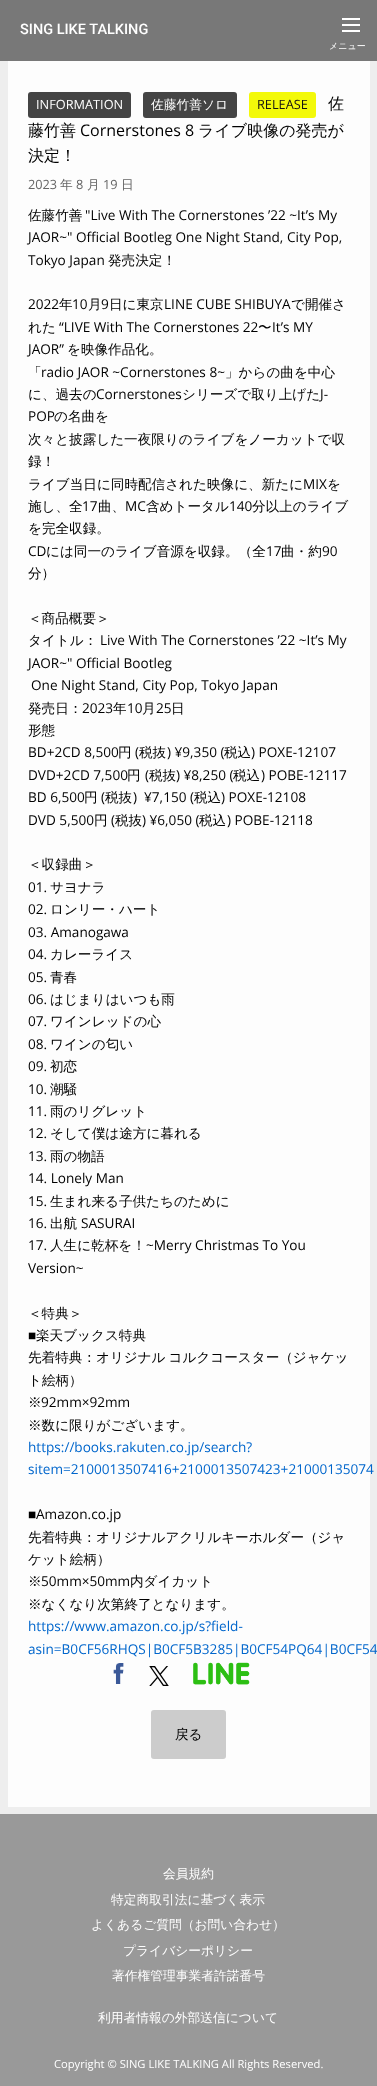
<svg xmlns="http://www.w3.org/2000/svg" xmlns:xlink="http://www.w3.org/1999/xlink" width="377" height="2086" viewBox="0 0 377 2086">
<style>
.cls-1{font:500 14.5px Roboto;fill:#ffffff}
.cls-2{font:500 9px WenQuanYi Zen Hei;fill:#ffffff}
.cls-3{font:12.75px Open Sans;fill:#ffffff}
.cls-4{font:500 12.75px WenQuanYi Zen Hei;fill:#ffffff}
.cls-5{font:12.75px Open Sans;fill:#141313}
.cls-6{font:500 16px WenQuanYi Zen Hei;fill:#000000}
.cls-7{font:16px Open Sans;fill:#000000}
.cls-8{font:12.75px Open Sans;fill:#666666}
.cls-9{font:500 12.75px WenQuanYi Zen Hei;fill:#666666}
.cls-10{font:500 13.6px WenQuanYi Zen Hei;fill:#000000}
.cls-11{font:13.6px Open Sans;fill:#000000}
.cls-12{font:13.6px Liberation Sans;fill:#000000}
.cls-13{font:13.6px Open Sans;fill:#0066cc}
.cls-14{font:11.2px Open Sans;fill:#ffffff}
</style>
<rect width="100%" height="100%" fill="#eeeeee"/>
<rect fill="#787878" x="0" y="0" width="377" height="61"/>
<rect fill="#ffffff" x="342" y="30" width="18" height="2"/>
<rect fill="#ffffff" x="342" y="24" width="18" height="2"/>
<rect fill="#ffffff" x="342" y="18" width="18" height="2"/>
<rect fill="#fdfdfd" x="8" y="61" width="362" height="1746"/>
<rect fill="#444444" x="28" y="92" width="103" height="26" rx="3"/>
<rect fill="#444444" x="143" y="92" width="94" height="26" rx="3"/>
<rect fill="#f3f90a" x="249" y="92" width="67" height="26" rx="3"/>
<image xlink:href="image0.png" x="113" y="1663" width="11" height="21"/>
<image xlink:href="image1.png" x="149" y="1666" width="20" height="20"/>
<image xlink:href="image2.png" x="193" y="1662" width="57" height="23"/>
<rect fill="#cccccc" x="151" y="1710" width="75" height="49" rx="3"/>
<rect fill="#999999" x="0" y="1814" width="377" height="272"/>
<text class="cls-1" x="20" y="34">SING LIKE TALKING</text>
<text class="cls-2" x="329" y="49">メニュー</text>
<text class="cls-3" x="36" y="109">INFORMATION</text>
<text class="cls-4" x="151" y="109">佐藤竹善ソロ</text>
<text class="cls-5" x="257" y="109">RELEASE</text>
<text class="cls-6" x="328" y="109">佐</text>
<text class="cls-6" x="28" y="136">藤竹善</text>
<text class="cls-7" x="80" y="136">Cornerstones 8</text>
<text class="cls-6" x="198" y="136">ライブ映像の発売が</text>
<text class="cls-6" x="28" y="161">決定！</text>
<text class="cls-8" x="28" y="189">2023</text>
<text class="cls-9" x="60" y="189">年</text>
<text class="cls-8" x="76" y="189">8</text>
<text class="cls-9" x="87" y="189">月</text>
<text class="cls-8" x="103" y="189">19</text>
<text class="cls-9" x="121" y="189">日</text>
<text class="cls-10" x="28" y="220">佐藤竹善</text>
<text class="cls-11" x="85" y="220">"Live With The Cornerstones ’22 ~It’s My</text>
<text class="cls-11"><tspan x="28" y="242">JAOR~" Official Bootleg One Night Stand, City Pop,</tspan><tspan x="28" y="265">Tokyo Japan</tspan></text>
<text class="cls-10" x="108" y="265">発売決定！</text>
<text class="cls-11" x="28" y="309">2022</text>
<text class="cls-10" x="59" y="309">年</text>
<text class="cls-11" x="72" y="309">10</text>
<text class="cls-10" x="88" y="309">月</text>
<text class="cls-11" x="101" y="309">9</text>
<text class="cls-10" x="109" y="309">日に東京</text>
<text class="cls-11" x="164" y="309">LINE CUBE SHIBUYA</text>
<text class="cls-10" x="291" y="309">で開催さ</text>
<text class="cls-10" x="28" y="332">れた</text>
<text class="cls-11" x="59" y="332">“LIVE With The Cornerstones 22</text>
<text class="cls-10" x="258" y="332">〜</text>
<text class="cls-11" x="272" y="332">It’s MY</text>
<text class="cls-11" x="28" y="354">JAOR”</text>
<text class="cls-10" x="67" y="354">を映像作品化。</text>
<text class="cls-10" x="28" y="377">「</text>
<text class="cls-11" x="41" y="377">radio JAOR ~Cornerstones 8~</text>
<text class="cls-10" x="225" y="377">」からの曲を中心</text>
<text class="cls-10" x="28" y="399">に、過去の</text>
<text class="cls-11" x="96" y="399">Cornerstones</text>
<text class="cls-10" x="182" y="399">シリーズで取り上げた</text>
<text class="cls-11" x="320" y="399">J-</text>
<text class="cls-11" x="28" y="421">POP</text>
<text class="cls-10" x="54" y="421">の名曲を</text>
<text class="cls-10"><tspan x="28" y="444">次々と披露した一夜限りのライブをノーカットで収</tspan><tspan x="28" y="466">録！</tspan><tspan x="28" y="489">ライブ当日に同時配信された映像に、新たに</tspan></text>
<text class="cls-11" x="303" y="489">MIX</text>
<text class="cls-10" x="327" y="489">を</text>
<text class="cls-10" x="28" y="511">施し、全</text>
<text class="cls-11" x="82" y="511">17</text>
<text class="cls-10" x="98" y="511">曲、</text>
<text class="cls-11" x="125" y="511">MC</text>
<text class="cls-10" x="146" y="511">含めトータル</text>
<text class="cls-11" x="229" y="511">140</text>
<text class="cls-10" x="252" y="511">分以上のライブ</text>
<text class="cls-10" x="28" y="533">を完全収録。</text>
<text class="cls-11" x="28" y="556">CD</text>
<text class="cls-10" x="46" y="556">には同一のライブ音源を収録。（全</text>
<text class="cls-11" x="266" y="556">17</text>
<text class="cls-10" x="281" y="556">曲・約</text>
<text class="cls-11" x="322" y="556">90</text>
<text class="cls-10" x="28" y="578">分）</text>
<text class="cls-10"><tspan x="28" y="623">＜商品概要＞</tspan><tspan x="28" y="645">タイトル：</tspan></text>
<text class="cls-11" x="100" y="645">Live With The Cornerstones ’22 ~It’s My</text>
<text class="cls-11" x="28" y="668">JAOR~" Official Bootleg</text>
<text class="cls-11" x="31" y="690">One Night Stand, City Pop, Tokyo Japan</text>
<text class="cls-10" x="28" y="713">発売日：</text>
<text class="cls-11" x="82" y="713">2023</text>
<text class="cls-10" x="113" y="713">年</text>
<text class="cls-11" x="127" y="713">10</text>
<text class="cls-10" x="142" y="713">月</text>
<text class="cls-11" x="156" y="713">25</text>
<text class="cls-10" x="171" y="713">日</text>
<text class="cls-10" x="28" y="735">形態</text>
<text class="cls-11" x="28" y="757">BD+2CD 8,500</text>
<text class="cls-10" x="118" y="757">円</text>
<text class="cls-11" x="135" y="757">(</text>
<text class="cls-10" x="139" y="757">税抜</text>
<text class="cls-11" x="167" y="757">) ¥9,350 (</text>
<text class="cls-10" x="224" y="757">税込</text>
<text class="cls-11" x="251" y="757">) POXE-12107</text>
<text class="cls-11" x="28" y="780">DVD+2CD 7,500</text>
<text class="cls-10" x="127" y="780">円</text>
<text class="cls-11" x="145" y="780">(</text>
<text class="cls-10" x="149" y="780">税抜</text>
<text class="cls-11" x="176" y="780">) ¥8,250 (</text>
<text class="cls-10" x="233" y="780">税込</text>
<text class="cls-11" x="261" y="780">) POBE-12117</text>
<text class="cls-11" x="28" y="802">BD 6,500</text>
<text class="cls-10" x="84" y="802">円</text>
<text class="cls-11" x="101" y="802">(</text>
<text class="cls-10" x="105" y="802">税抜</text>
<text class="cls-11" xml:space="preserve" x="133" y="802">)  ¥7,150 (</text>
<text class="cls-10" x="194" y="802">税込</text>
<text class="cls-11" x="221" y="802">) POXE-12108</text>
<text class="cls-11" x="28" y="825">DVD 5,500</text>
<text class="cls-10" x="94" y="825">円</text>
<text class="cls-11" x="111" y="825">(</text>
<text class="cls-10" x="115" y="825">税抜</text>
<text class="cls-11" x="142" y="825">) ¥6,050 (</text>
<text class="cls-10" x="199" y="825">税込</text>
<text class="cls-11" x="227" y="825">) POBE-12118</text>
<text class="cls-10" x="28" y="869">＜収録曲＞</text>
<text class="cls-11" x="28" y="892">01.</text>
<text class="cls-10" x="50" y="892">サヨナラ</text>
<text class="cls-11" x="28" y="914">02.</text>
<text class="cls-10" x="50" y="914">ロンリー・ハート</text>
<text class="cls-11"><tspan x="28" y="937">03. Amanogawa</tspan><tspan x="28" y="959">04.</tspan></text>
<text class="cls-10" x="50" y="959">カレーライス</text>
<text class="cls-11" x="28" y="982">05.</text>
<text class="cls-10" x="50" y="982">青春</text>
<text class="cls-11" x="28" y="1004">06.</text>
<text class="cls-10" x="50" y="1004">はじまりはいつも雨</text>
<text class="cls-11" x="28" y="1026">07.</text>
<text class="cls-10" x="50" y="1026">ワインレッドの心</text>
<text class="cls-11" x="28" y="1049">08.</text>
<text class="cls-10" x="50" y="1049">ワインの匂い</text>
<text class="cls-11" x="28" y="1071">09.</text>
<text class="cls-10" x="50" y="1071">初恋</text>
<text class="cls-11" x="28" y="1094">10.</text>
<text class="cls-10" x="50" y="1094">潮騒</text>
<text class="cls-11" x="28" y="1116">11.</text>
<text class="cls-10" x="50" y="1116">雨のリグレット</text>
<text class="cls-11" x="28" y="1138">12.</text>
<text class="cls-10" x="50" y="1138">そして僕は途方に暮れる</text>
<text class="cls-11" x="28" y="1161">13.</text>
<text class="cls-10" x="50" y="1161">雨の物語</text>
<text class="cls-11"><tspan x="28" y="1183">14. Lonely Man</tspan><tspan x="28" y="1206">15.</tspan></text>
<text class="cls-10" x="50" y="1206">生まれ来る子供たちのために</text>
<text class="cls-11" x="28" y="1228">16.</text>
<text class="cls-10" x="50" y="1228">出航</text>
<text class="cls-11" x="81" y="1228">SASURAI</text>
<text class="cls-11" x="28" y="1250">17.</text>
<text class="cls-10" x="50" y="1250">人生に乾杯を！</text>
<text class="cls-11" x="146" y="1250">~Merry Christmas To You</text>
<text class="cls-11" x="28" y="1273">Version~</text>
<text class="cls-10" x="28" y="1318">＜特典＞</text>
<text class="cls-12" x="28" y="1340">■</text>
<text class="cls-10" x="36" y="1340">楽天ブックス特典</text>
<text class="cls-10"><tspan x="28" y="1362" word-spacing="-1">先着特典：オリジナル コルクコースター（ジャケッ</tspan><tspan x="28" y="1385">ト絵柄）</tspan><tspan x="28" y="1407">※</tspan></text>
<text class="cls-11" x="41" y="1407">92mm×92mm</text>
<text class="cls-10" x="28" y="1430">※数に限りがございます。</text>
<text class="cls-13"><tspan x="28" y="1452">https://books.rakuten.co.jp/search?</tspan><tspan x="28" y="1474">sitem=2100013507416+2100013507423+21000135074</tspan></text>
<text class="cls-12" x="28" y="1519">■</text>
<text class="cls-11" x="36" y="1519">Amazon.co.jp</text>
<text class="cls-10"><tspan x="28" y="1542">先着特典：オリジナルアクリルキーホルダー（ジャ</tspan><tspan x="28" y="1564">ケット絵柄）</tspan><tspan x="28" y="1586">※</tspan></text>
<text class="cls-11" x="41" y="1586">50mm×50mm</text>
<text class="cls-10" x="130" y="1586">内ダイカット</text>
<text class="cls-10" x="28" y="1609">※なくなり次第終了となります。</text>
<text class="cls-13"><tspan x="28" y="1631">https://www.amazon.co.jp/s?field-</tspan><tspan x="28" y="1654">asin=B0CF56RHQS|B0CF5B3285|B0CF54PQ64|B0CF54</tspan></text>
<text class="cls-10" x="175" y="1739">戻る</text>
<text class="cls-4" x="163" y="1878">会員規約</text>
<text class="cls-4" x="111" y="1904">特定商取引法に基づく表示</text>
<text class="cls-4" x="91" y="1929">よくあるご質問（お問い合わせ）</text>
<text class="cls-4" x="123" y="1955">プライバシーポリシー</text>
<text class="cls-4" x="112" y="1980">著作権管理事業者許諾番号</text>
<text class="cls-4" x="98" y="2022">利用者情報の外部送信について</text>
<text class="cls-14" x="54" y="2068">Copyright © SING LIKE TALKING All Rights Reserved.</text>
</svg>
